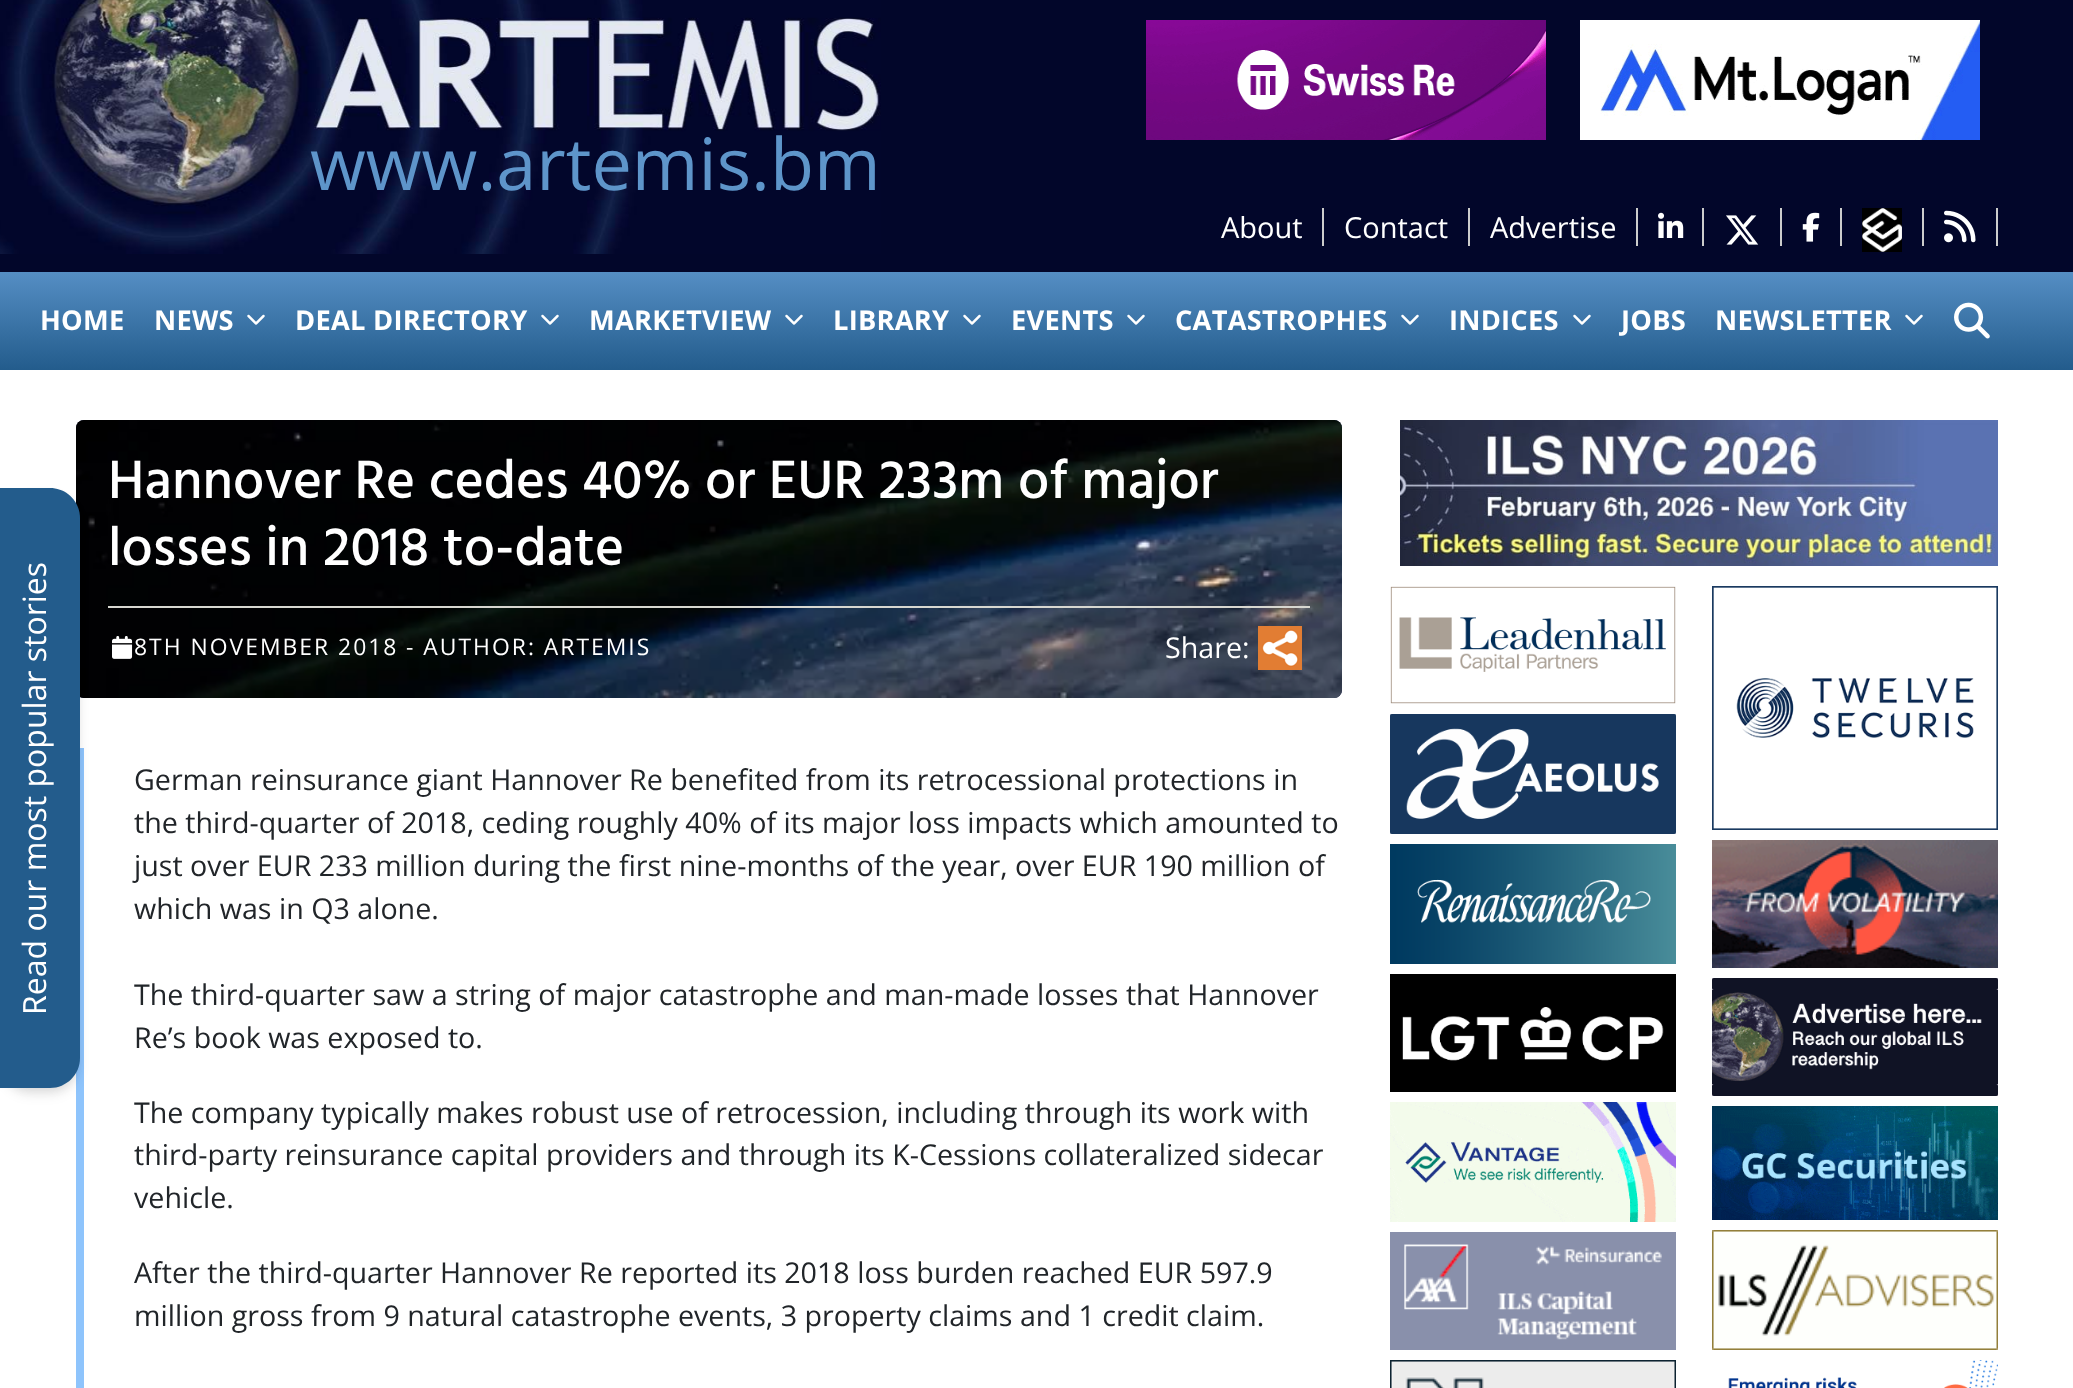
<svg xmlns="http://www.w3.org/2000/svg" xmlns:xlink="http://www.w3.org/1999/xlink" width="2073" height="1388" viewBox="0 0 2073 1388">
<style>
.cls-1{font:72px Open Sans;fill:#5e95ca}
.cls-2{font:29px Open Sans;fill:#ffffff}
.cls-3{font:bold 27.25px Open Sans;letter-spacing:0.25px;fill:#ffffff}
.cls-4{font:32px Open Sans;fill:#ffffff}
.cls-5{font:500 55.45px Hind;fill:#ffffff}
.cls-6{font:22.9px Open Sans;letter-spacing:2px;fill:#ffffff}
.cls-7{font:28.65px Open Sans;fill:#ffffff}
.cls-8{font:28.65px Open Sans;fill:#212529}
</style>
<defs>
<linearGradient id="g1" gradientUnits="userSpaceOnUse" x1="1037" y1="272" x2="1037" y2="370"><stop offset="0" stop-color="#558ec4"/><stop offset="1" stop-color="#235c8c"/></linearGradient>
</defs>
<rect width="100%" height="100%" fill="#ffffff"/>
<rect fill="#02062a" x="0" y="0" width="2073" height="272"/>
<image xlink:href="image0.png" x="0" y="0" width="881" height="254"/>
<image xlink:href="image1.png" x="1146" y="20" width="400" height="120"/>
<image xlink:href="image2.png" x="1580" y="20" width="400" height="120"/>
<rect fill="#cccccc" x="1322" y="208" width="2" height="38"/>
<rect fill="#cccccc" x="1468" y="208" width="2" height="38"/>
<rect fill="#cccccc" x="1636" y="208" width="2" height="38"/>
<rect fill="#cccccc" x="1702" y="208" width="2" height="38"/>
<image xlink:href="image3.png" x="1658" y="212" width="26" height="26"/>
<image xlink:href="image4.png" x="1726" y="215" width="33" height="30"/>
<rect fill="#cccccc" x="1780" y="208" width="2" height="38"/>
<rect fill="#cccccc" x="1840" y="208" width="2" height="38"/>
<image xlink:href="image5.png" x="1802" y="212" width="18" height="30"/>
<image xlink:href="image6.png" x="1862" y="208" width="40" height="44"/>
<rect fill="#cccccc" x="1922" y="208" width="2" height="38"/>
<rect fill="#cccccc" x="1996" y="208" width="2" height="38"/>
<image xlink:href="image7.png" x="1944" y="210" width="32" height="33"/>
<rect fill="url(#g1)" x="0" y="272" width="2073" height="98"/>
<image xlink:href="image8.png" x="247" y="314" width="18" height="11"/>
<image xlink:href="image8.png" x="541" y="314" width="18" height="11"/>
<image xlink:href="image8.png" x="785" y="314" width="18" height="11"/>
<image xlink:href="image8.png" x="963" y="314" width="18" height="11"/>
<image xlink:href="image8.png" x="1127" y="314" width="18" height="11"/>
<image xlink:href="image8.png" x="1401" y="314" width="18" height="11"/>
<image xlink:href="image8.png" x="1573" y="314" width="18" height="11"/>
<image xlink:href="image8.png" x="1905" y="314" width="18" height="11"/>
<image xlink:href="image9.png" x="1954" y="302" width="36" height="37"/>
<rect fill="#121942" x="76" y="420" width="1266" height="278" rx="8"/>
<image xlink:href="image10.png" x="76" y="420" width="1266" height="278"/>
<rect fill="#8ec4fc" x="76" y="748" width="8" height="640"/>
<rect fill="#000000" fill-opacity="0.06" filter="blur(4px)" x="2" y="494" width="76" height="596" rx="28"/>
<rect fill="#000000" fill-opacity="0.1" filter="blur(6px)" x="2" y="498" width="76" height="596" rx="28"/>
<path fill="#235c8c" d="M0 488H50C66.5 488 80 501.5 80 518V1058C80 1074.5 66.5 1088 50 1088H0Z"/>
<rect fill="#d7d7d0" x="108" y="606" width="1202" height="2"/>
<image xlink:href="image11.png" x="112" y="636" width="21" height="23"/>
<image xlink:href="image12.png" x="1258" y="626" width="44" height="44"/>
<image xlink:href="image13.png" x="1400" y="420" width="598" height="146"/>
<image xlink:href="image14.png" x="1390" y="586" width="286" height="118"/>
<image xlink:href="image15.png" x="1390" y="714" width="286" height="120"/>
<image xlink:href="image16.png" x="1390" y="844" width="286" height="120"/>
<image xlink:href="image17.png" x="1390" y="974" width="286" height="118"/>
<image xlink:href="image18.png" x="1390" y="1102" width="286" height="120"/>
<image xlink:href="image19.png" x="1390" y="1232" width="286" height="118"/>
<image xlink:href="image20.png" x="1390" y="1360" width="286" height="28"/>
<image xlink:href="image21.png" x="1712" y="586" width="286" height="244"/>
<image xlink:href="image22.png" x="1712" y="840" width="286" height="128"/>
<image xlink:href="image23.png" x="1712" y="978" width="286" height="118"/>
<image xlink:href="image24.png" x="1712" y="1106" width="286" height="114"/>
<image xlink:href="image25.png" x="1712" y="1230" width="286" height="120"/>
<image xlink:href="image26.png" x="1728" y="1360" width="270" height="28"/>
<text class="cls-1" x="310" y="190">www.artemis.bm</text>
<text class="cls-2" x="1221" y="238">About</text>
<text class="cls-2" x="1344" y="238">Contact</text>
<text class="cls-2" x="1490" y="238">Advertise</text>
<text class="cls-3" x="40" y="330">HOME</text>
<text class="cls-3" x="154" y="330">NEWS</text>
<text class="cls-3" x="295" y="330">DEAL DIRECTORY</text>
<text class="cls-3" x="589" y="330">MARKETVIEW</text>
<text class="cls-3" x="833" y="330">LIBRARY</text>
<text class="cls-3" x="1011" y="330">EVENTS</text>
<text class="cls-3" x="1175" y="330">CATASTROPHES</text>
<text class="cls-3" x="1449" y="330">INDICES</text>
<text class="cls-3" x="1621" y="330">JOBS</text>
<text class="cls-3" x="1715" y="330">NEWSLETTER</text>
<text class="cls-4" x="46" y="1015" transform="rotate(-90 46 1015)">Read our most popular stories</text>
<text class="cls-5"><tspan x="108" y="498">Hannover Re cedes 40% or EUR 233m of major</tspan><tspan x="108" y="565">losses in 2018 to-date</tspan></text>
<text class="cls-6" x="134" y="655">8TH NOVEMBER 2018</text>
<text class="cls-6" x="406" y="655">- AUTHOR: ARTEMIS</text>
<text class="cls-7" x="1165" y="658">Share:</text>
<text class="cls-8"><tspan x="134" y="790">German reinsurance giant Hannover Re benefited from its retrocessional protections in</tspan><tspan x="134" y="833">the third-quarter of 2018, ceding roughly 40% of its major loss impacts which amounted to</tspan><tspan x="134" y="876">just over EUR 233 million during the first nine-months of the year, over EUR 190 million of</tspan><tspan x="134" y="919">which was in Q3 alone.</tspan></text>
<text class="cls-8"><tspan x="134" y="1005">The third-quarter saw a string of major catastrophe and man-made losses that Hannover</tspan><tspan x="134" y="1048">Re’s book was exposed to.</tspan></text>
<text class="cls-8"><tspan x="134" y="1123">The company typically makes robust use of retrocession, including through its work with</tspan><tspan x="134" y="1165">third-party reinsurance capital providers and through its K-Cessions collateralized sidecar</tspan><tspan x="134" y="1208">vehicle.</tspan></text>
<text class="cls-8"><tspan x="134" y="1283">After the third-quarter Hannover Re reported its 2018 loss burden reached EUR 597.9</tspan><tspan x="134" y="1326">million gross from 9 natural catastrophe events, 3 property claims and 1 credit claim.</tspan></text>
</svg>
